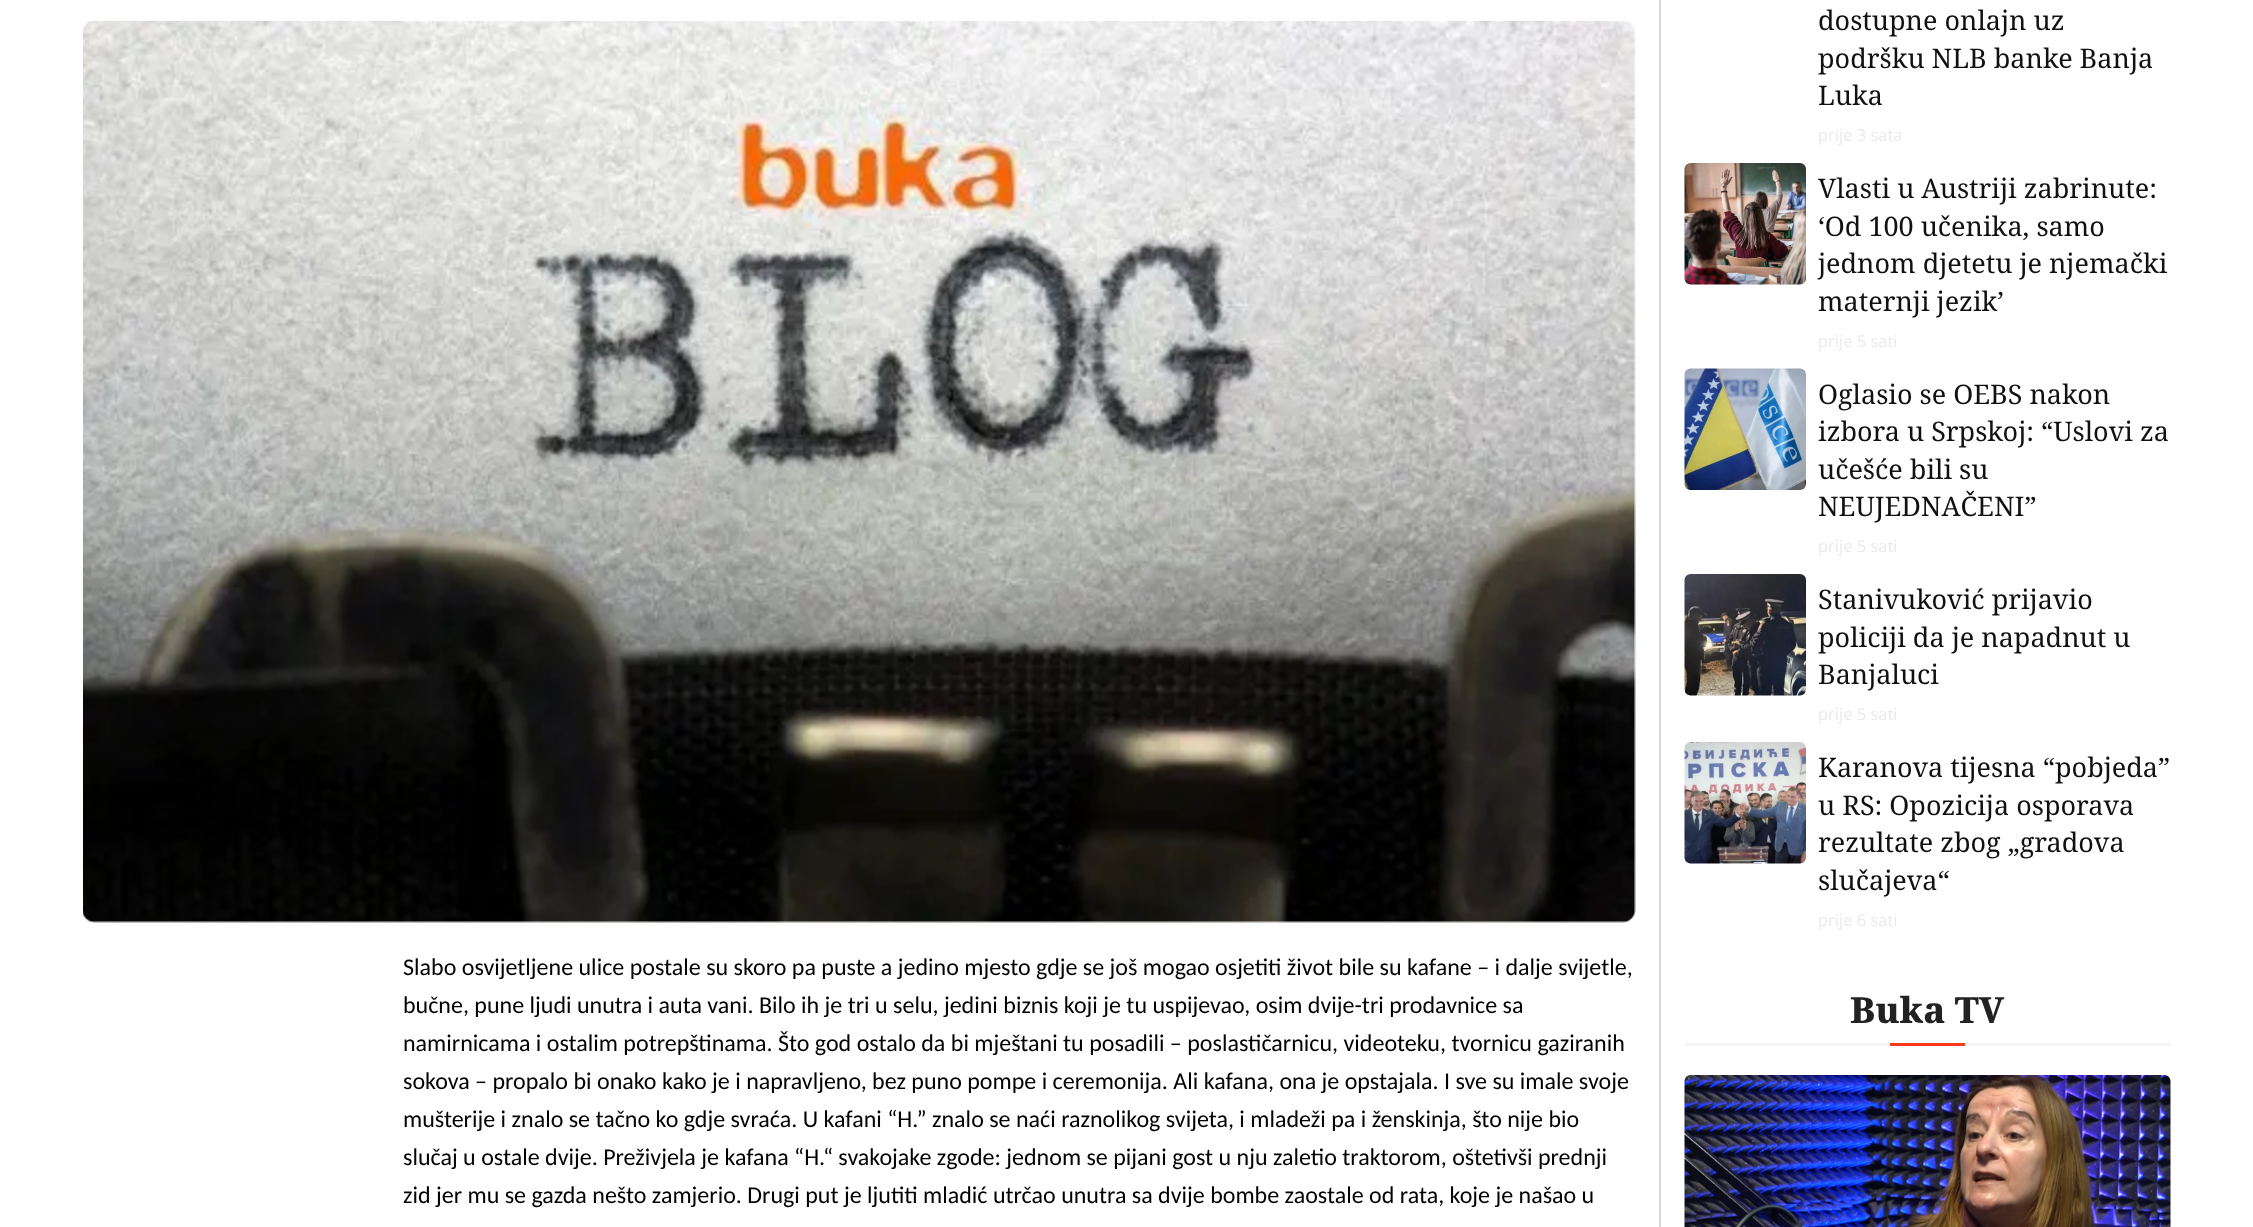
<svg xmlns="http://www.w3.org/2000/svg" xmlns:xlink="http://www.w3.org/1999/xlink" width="2253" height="1227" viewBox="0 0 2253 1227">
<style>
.cls-1{font:27px Noto Serif;fill:#111111}
.cls-2{font:16.5px Open Sans;fill:#eaeaea}
.cls-3{font:800 36px Noto Serif;fill:#222222}
.cls-4{font:24px Carlito;fill:#000000}
</style>
<rect width="100%" height="100%" fill="#ffffff"/>
<image xlink:href="image0.png" x="1684" y="163" width="122" height="122"/>
<image xlink:href="image1.png" x="1684" y="368" width="122" height="122"/>
<image xlink:href="image2.png" x="1684" y="574" width="122" height="122"/>
<image xlink:href="image3.png" x="1684" y="742" width="122" height="122"/>
<rect fill="#f5f5f5" x="1685" y="1043" width="486" height="3"/>
<rect fill="#ff3a1a" x="1890" y="1043" width="75" height="3"/>
<image xlink:href="image4.png" x="1684" y="1075" width="487" height="152"/>
<rect fill="#d8d8d8" x="1659" y="0" width="2" height="1227"/>
<image xlink:href="image5.png" x="83" y="21" width="1553" height="902"/>
<text class="cls-1"><tspan x="1818" y="30">dostupne onlajn uz</tspan><tspan x="1818" y="68">podršku NLB banke Banja</tspan><tspan x="1818" y="105">Luka</tspan></text>
<text class="cls-2" x="1818" y="141">prije 3 sata</text>
<text class="cls-1"><tspan x="1818" y="198">Vlasti u Austriji zabrinute:</tspan><tspan x="1818" y="236">‘Od 100 učenika, samo</tspan><tspan x="1818" y="273">jednom djetetu je njemački</tspan><tspan x="1818" y="311">maternji jezik’</tspan></text>
<text class="cls-2" x="1818" y="347">prije 5 sati</text>
<text class="cls-1"><tspan x="1818" y="404">Oglasio se OEBS nakon</tspan><tspan x="1818" y="441">izbora u Srpskoj: “Uslovi za</tspan><tspan x="1818" y="479">učešće bili su</tspan><tspan x="1818" y="516">NEUJEDNAČENI”</tspan></text>
<text class="cls-2" x="1818" y="552">prije 5 sati</text>
<text class="cls-1"><tspan x="1818" y="609">Stanivuković prijavio</tspan><tspan x="1818" y="647">policiji da je napadnut u</tspan><tspan x="1818" y="684">Banjaluci</tspan></text>
<text class="cls-2" x="1818" y="720">prije 5 sati</text>
<text class="cls-1"><tspan x="1818" y="777">Karanova tijesna “pobjeda”</tspan><tspan x="1818" y="815">u RS: Opozicija osporava</tspan><tspan x="1818" y="852">rezultate zbog „gradova</tspan><tspan x="1818" y="890">slučajeva“</tspan></text>
<text class="cls-2" x="1818" y="926">prije 6 sati</text>
<text class="cls-3" x="1850" y="1023">Buka TV</text>
<text class="cls-4"><tspan x="403" y="975">Slabo osvijetljene ulice postale su skoro pa puste a jedino mjesto gdje se još mogao osjetiti život bile su kafane – i dalje svijetle,</tspan><tspan x="403" y="1013">bučne, pune ljudi unutra i auta vani. Bilo ih je tri u selu, jedini biznis koji je tu uspijevao, osim dvije-tri prodavnice sa</tspan><tspan x="403" y="1051">namirnicama i ostalim potrepštinama. Što god ostalo da bi mještani tu posadili – poslastičarnicu, videoteku, tvornicu gaziranih</tspan><tspan x="403" y="1089">sokova – propalo bi onako kako je i napravljeno, bez puno pompe i ceremonija. Ali kafana, ona je opstajala. I sve su imale svoje</tspan><tspan x="403" y="1127">mušterije i znalo se tačno ko gdje svraća. U kafani “H.” znalo se naći raznolikog svijeta, i mladeži pa i ženskinja, što nije bio</tspan><tspan x="403" y="1165">slučaj u ostale dvije. Preživjela je kafana “H.“ svakojake zgode: jednom se pijani gost u nju zaletio traktorom, oštetivši prednji</tspan><tspan x="403" y="1203">zid jer mu se gazda nešto zamjerio. Drugi put je ljutiti mladić utrčao unutra sa dvije bombe zaostale od rata, koje je našao u</tspan></text>
</svg>
